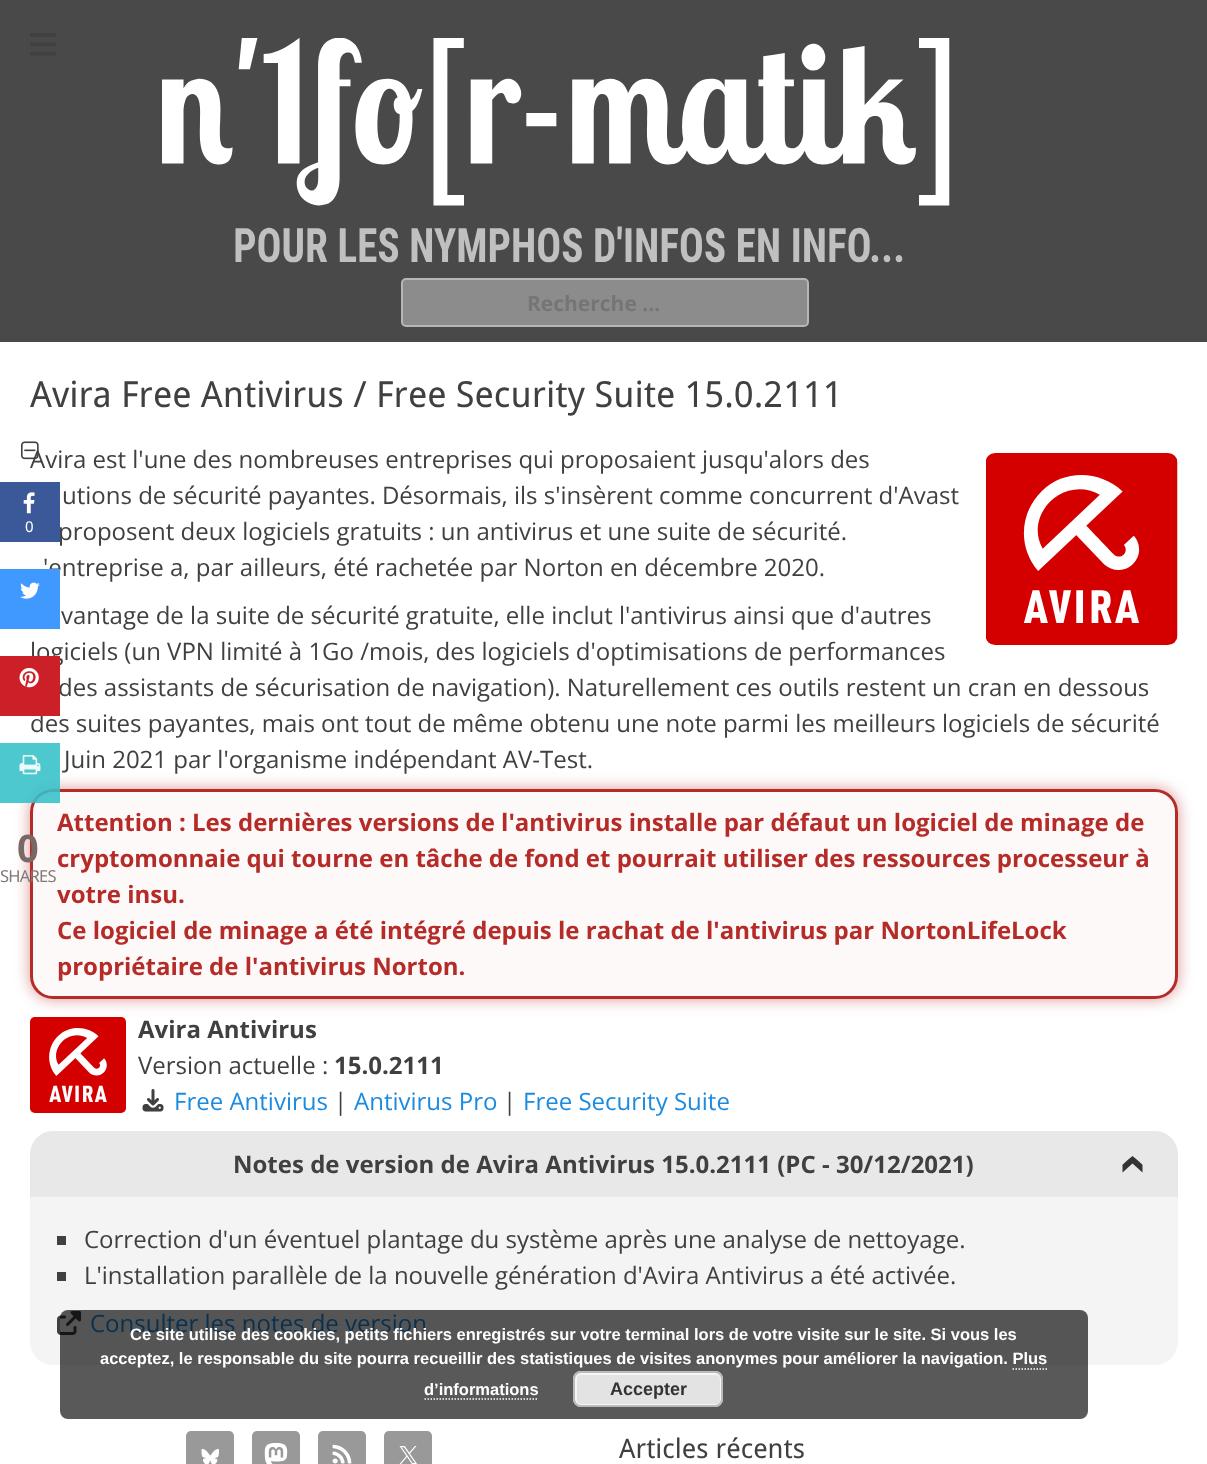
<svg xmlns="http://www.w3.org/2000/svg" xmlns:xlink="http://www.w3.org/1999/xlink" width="1207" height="1464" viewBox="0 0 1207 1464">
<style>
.cls-1{font:15px Noto Sans;letter-spacing:1px;fill:#ffffff}
.cls-2{font:bold 38px Noto Sans;letter-spacing:1px;fill:#7a6867}
.cls-3{font:16.5px Noto Sans;letter-spacing:-0.75px;fill:#817979}
.cls-4{font:bold 21px Open Sans;fill:#757575}
.cls-5{font:36px Droid Sans;fill:#404040}
.cls-6{font:24px Open Sans;fill:#404040}
.cls-7{font:bold 24px Open Sans;fill:#b52b27}
.cls-8{font:bold 24px Open Sans;fill:#404040}
.cls-9{font:24px Open Sans;fill:#1b8be0}
.cls-10{font:27px Droid Sans;fill:#404040}
.cls-11{font:bold 16.5px Liberation Sans;fill:#ffffff}
.cls-12{font:bold 18px Liberation Sans;fill:#333333}
</style>
<defs>
<clipPath id="clip1"><path d="M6 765H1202V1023H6ZM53 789H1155C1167.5 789 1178 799.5 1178 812V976C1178 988.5 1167.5 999 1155 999H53C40.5 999 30 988.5 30 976V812C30 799.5 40.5 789 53 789Z" clip-rule="evenodd"/></clipPath>
</defs>
<rect width="100%" height="100%" fill="#494949"/>
<rect fill="#ffffff" x="0" y="342" width="1207" height="1122"/>
<rect fill="#3b5998" x="0" y="482" width="60" height="60"/>
<image xlink:href="image1.png" x="23" y="492" width="12" height="22"/>
<g clip-path="url(#clip1)">
<rect fill="#b52b27" fill-opacity="0.5" filter="blur(7.5px)" x="30" y="789" width="1148" height="210" rx="23"/>
</g>
<rect fill="#f5d7d7" fill-opacity="0.15" stroke="#b52b27" stroke-width="3" x="31.5" y="790.5" width="1145" height="207" rx="21.5"/>
<rect fill="#36c1c8" fill-opacity="0.89" x="0" y="743" width="60" height="60"/>
<image xlink:href="image4.png" x="19" y="755" width="22" height="20"/>
<image xlink:href="image5.png" x="30" y="33" width="26" height="23"/>
<image xlink:href="image6.png" x="162" y="38" width="788" height="225"/>
<rect fill="#8c8c8c" stroke="#b6b6b6" stroke-width="2" x="402" y="279" width="406" height="47" rx="4"/>
<image xlink:href="image7.png" x="986" y="453" width="192" height="192"/>
<image xlink:href="image8.png" x="30" y="1017" width="96" height="96"/>
<image xlink:href="image9.png" x="142" y="1089" width="22" height="23"/>
<path fill="#e8e8e8" d="M53 1131H1155C1167.5 1131 1178 1141.5 1178 1154V1197H30V1154C30 1141.5 40.5 1131 53 1131Z"/>
<image xlink:href="image10.png" x="1122" y="1156" width="21" height="17"/>
<path fill="#f4f4f4" d="M30 1197H1178V1342C1178 1354.5 1167.5 1365 1155 1365H53C40.5 1365 30 1354.5 30 1342Z"/>
<rect fill="#404040" x="57" y="1236" width="9" height="9"/>
<rect fill="#404040" x="57" y="1272" width="9" height="9"/>
<image xlink:href="image11.png" x="57" y="1311" width="24" height="24"/>
<rect fill="#999999" x="186" y="1431" width="48" height="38" rx="5"/>
<image xlink:href="image12.png" x="201" y="1449" width="18" height="15"/>
<rect fill="#999999" x="252" y="1431" width="48" height="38" rx="5"/>
<image xlink:href="image13.png" x="264" y="1443" width="24" height="21"/>
<rect fill="#999999" x="318" y="1431" width="48" height="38" rx="5"/>
<image xlink:href="image14.png" x="332" y="1444" width="20" height="20"/>
<rect fill="#999999" x="384" y="1431" width="48" height="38" rx="5"/>
<image xlink:href="image15.png" x="399" y="1446" width="18" height="18"/>
<text class="cls-1" x="25" y="532">0</text>
<text class="cls-2" x="17" y="862">0</text>
<text class="cls-3" x="0" y="882">SHARES</text>
<text class="cls-4" x="527" y="311">Recherche ...</text>
<text class="cls-5" x="30" y="407">Avira Free Antivirus / Free Security Suite 15.0.2111</text>
<text class="cls-6" x="30" y="468">Avira est l'une des nombreuses entreprises qui proposaient jusqu'alors des</text>
<image xlink:href="image0.png" x="21" y="441" width="18" height="19"/>
<text class="cls-6" x="62" y="504">utions de sécurité payantes. Désormais, ils s'insèrent comme concurrent d'Avast</text>
<text class="cls-6" x="58" y="540">proposent deux logiciels gratuits : un antivirus et une suite de sécurité.</text>
<text class="cls-6" x="43" y="576">'entreprise a, par ailleurs, été rachetée par Norton en décembre 2020.</text>
<rect fill="#4099ff" x="0" y="569" width="60" height="60"/>
<image xlink:href="image2.png" x="20" y="582" width="20" height="17"/>
<text class="cls-6" x="61" y="624">vantage de la suite de sécurité gratuite, elle inclut l'antivirus ainsi que d'autres</text>
<text class="cls-6" x="30" y="660">logiciels (un VPN limité à 1Go /mois, des logiciels d'optimisations de performances</text>
<text class="cls-6" x="58" y="696">des assistants de sécurisation de navigation). Naturellement ces outils restent un cran en dessous</text>
<text class="cls-6" x="30" y="732">des suites payantes, mais ont tout de même obtenu une note parmi les meilleurs logiciels de sécurité</text>
<rect fill="#cb2027" x="0" y="656" width="60" height="60"/>
<image xlink:href="image3.png" x="19" y="668" width="20" height="20"/>
<text class="cls-6" x="64" y="768">Juin 2021 par l'organisme indépendant AV-Test.</text>
<text class="cls-7"><tspan x="57" y="831">Attention : Les dernières versions de l'antivirus installe par défaut un logiciel de minage de</tspan><tspan x="57" y="867">cryptomonnaie qui tourne en tâche de fond et pourrait utiliser des ressources processeur à</tspan><tspan x="57" y="903">votre insu.</tspan><tspan x="57" y="939">Ce logiciel de minage a été intégré depuis le rachat de l'antivirus par NortonLifeLock</tspan><tspan x="57" y="975">propriétaire de l'antivirus Norton.</tspan></text>
<text class="cls-8" x="138" y="1038">Avira Antivirus</text>
<text class="cls-6" x="138" y="1074">Version actuelle :</text>
<text class="cls-8" x="334" y="1074">15.0.2111</text>
<text class="cls-9" x="174" y="1110">Free Antivirus</text>
<text class="cls-6" x="334" y="1110">|</text>
<text class="cls-9" x="354" y="1110">Antivirus Pro</text>
<text class="cls-6" x="503" y="1110">|</text>
<text class="cls-9" x="523" y="1110">Free Security Suite</text>
<text class="cls-8" x="233" y="1173">Notes de version de Avira Antivirus 15.0.2111 (PC - 30/12/2021)</text>
<text class="cls-6"><tspan x="84" y="1248">Correction d'un éventuel plantage du système après une analyse de nettoyage.</tspan><tspan x="84" y="1284">L'installation parallèle de la nouvelle génération d'Avira Antivirus a été activée.</tspan></text>
<text class="cls-9" x="90" y="1332">Consulter les notes de version</text>
<text class="cls-10" x="619" y="1458">Articles récents</text>
<rect fill="#000000" fill-opacity="0.65" x="60" y="1310" width="1028" height="109" rx="8"/>
<text class="cls-11" x="130" y="1340">Ce site utilise des cookies, petits fichiers enregistrés sur votre terminal lors de votre visite sur le site. Si vous les</text>
<text class="cls-11" x="100" y="1364">acceptez, le responsable du site pourra recueillir des statistiques de visites anonymes pour améliorer la navigation. Plus</text>
<text class="cls-11" x="424" y="1395">d’informations</text>
<path fill="none" stroke="#ffffff" stroke-width="1.5" stroke-dasharray="1.5 1.5" d="M1012.5 1369H1047"/>
<path fill="none" stroke="#ffffff" stroke-width="1.5" stroke-dasharray="1.5 1.5" d="M424.5 1399H538.5"/>
<rect fill="#e3e3e3" x="573" y="1371" width="150" height="36" rx="8"/>
<rect fill="none" stroke="#f6f6f6" stroke-width="2" x="576" y="1374" width="145" height="31" rx="5"/>
<rect fill="none" stroke="#bbbbbb" stroke-width="2" x="574" y="1372" width="148" height="34" rx="7"/>
<text class="cls-12" x="610" y="1395">Accepter</text>
</svg>
